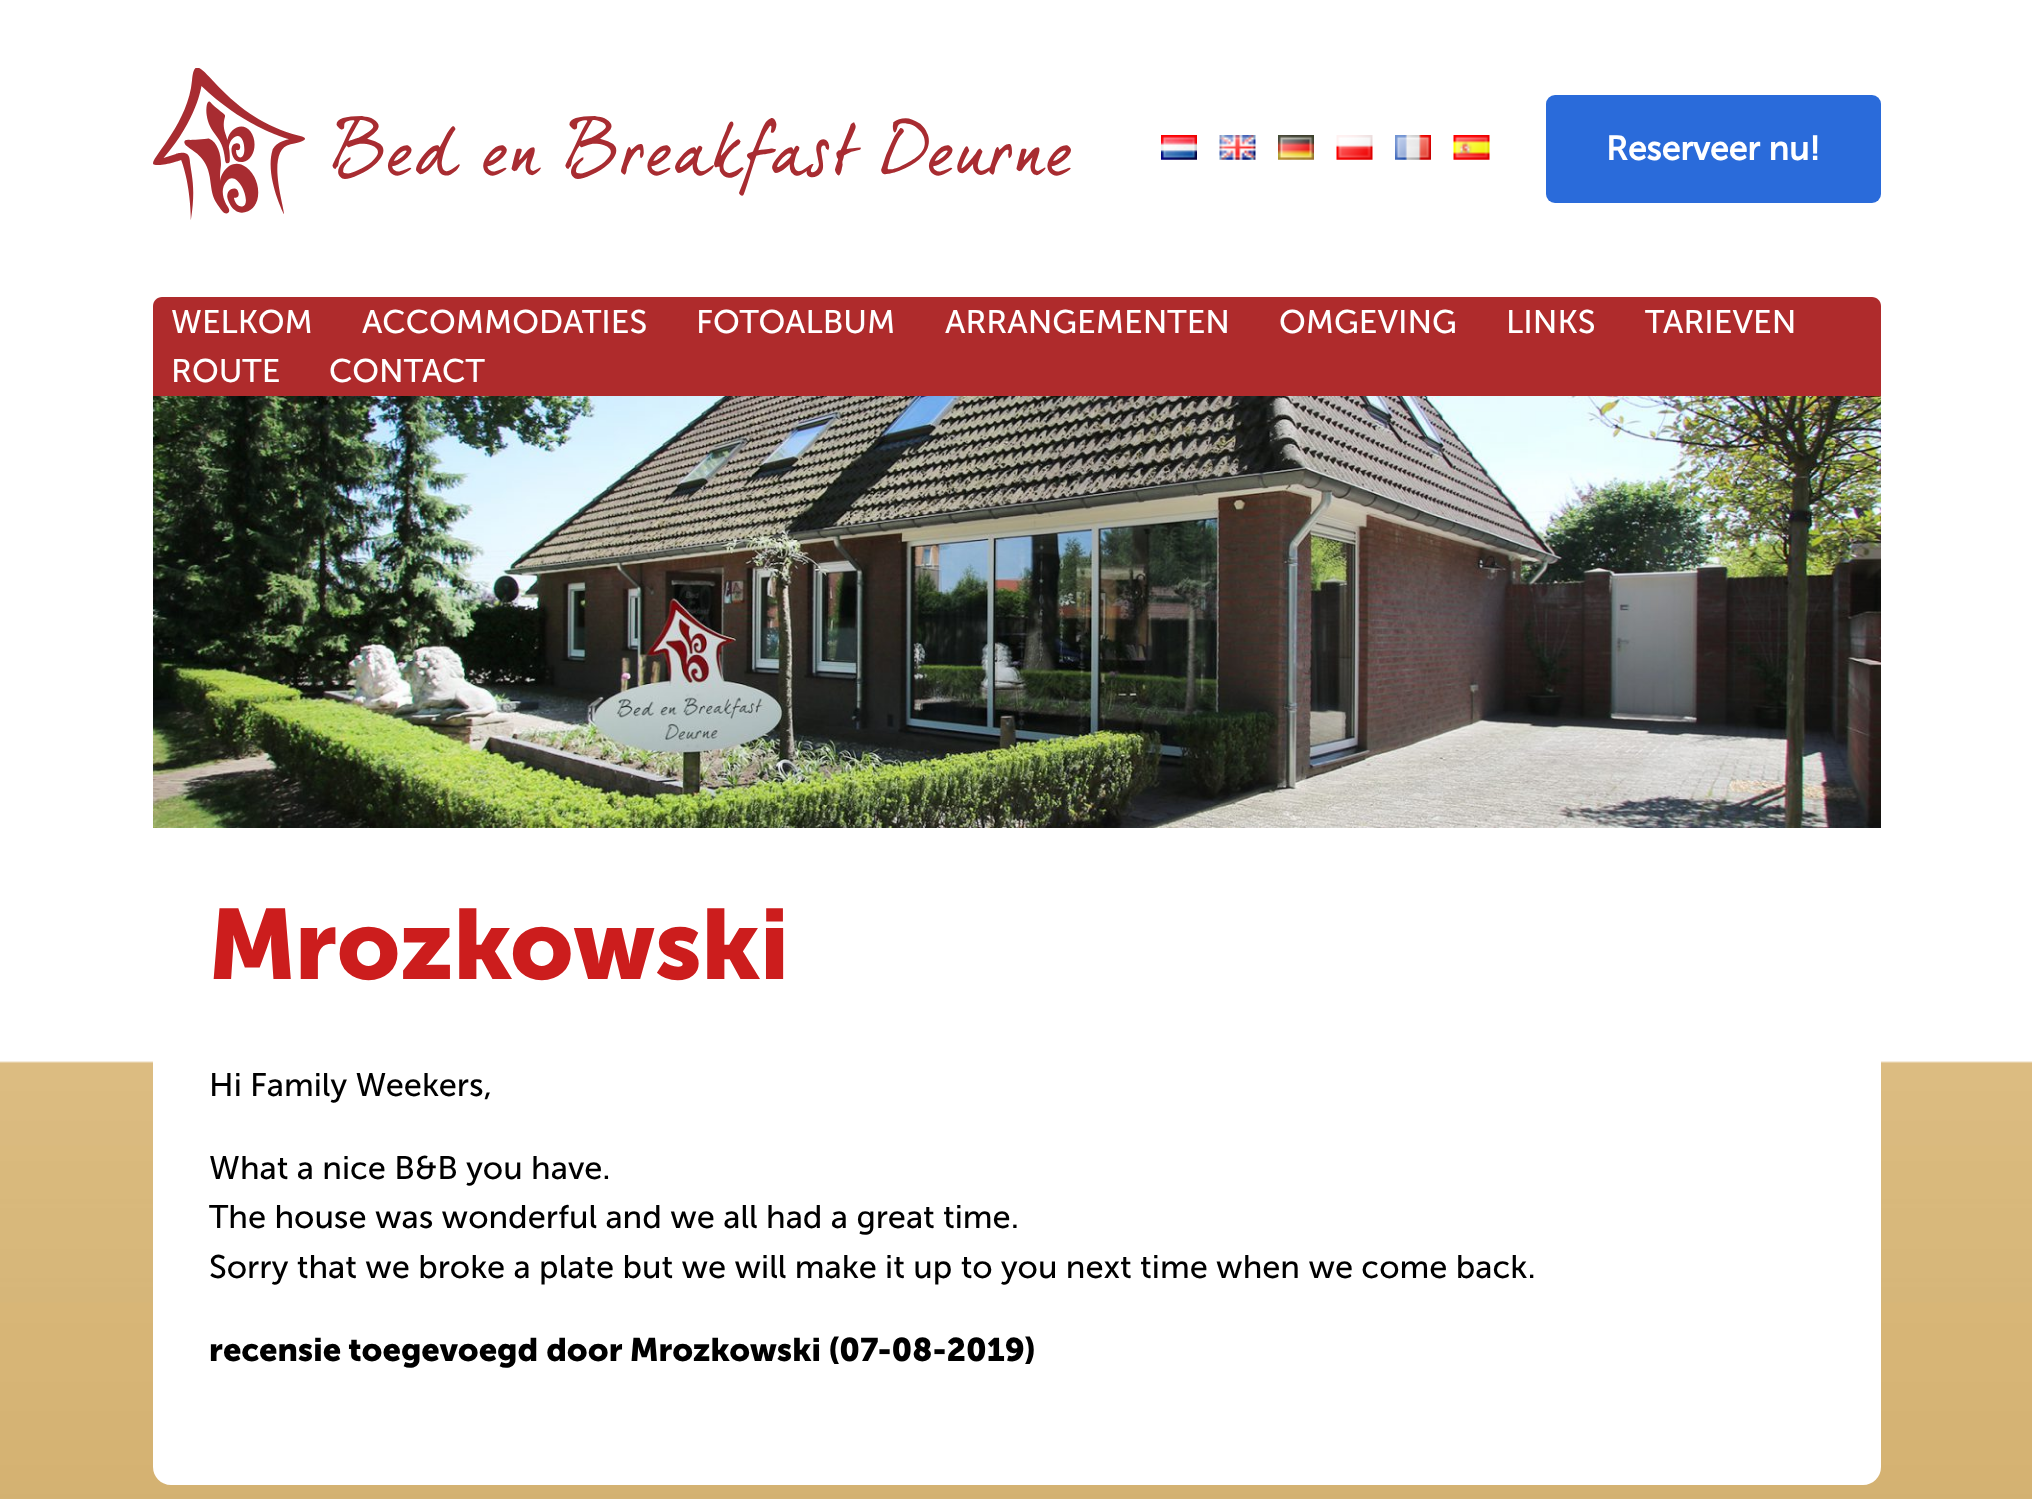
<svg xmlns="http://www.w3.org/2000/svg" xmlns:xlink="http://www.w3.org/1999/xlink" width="2032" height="1499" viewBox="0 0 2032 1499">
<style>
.cls-1{font:bold 33.75px Museo Sans;fill:#ffffff}
.cls-2{font:32.6px Museo Sans;fill:#ffffff}
.cls-3{font:bold 99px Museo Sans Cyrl;fill:#cc1d1d}
.cls-4{font:32.6px Museo Sans;fill:#000000}
.cls-5{font:bold 32.6px Museo Sans Cyrl;fill:#000000}
</style>
<rect width="100%" height="100%" fill="#ffffff"/>
<image xlink:href="image0.png" x="0" y="0" width="2032" height="1499"/>
<image xlink:href="image1.png" x="153" y="68" width="918" height="152"/>
<image xlink:href="image2.png" x="1161" y="135" width="36" height="25"/>
<image xlink:href="image3.png" x="1219" y="135" width="37" height="25"/>
<image xlink:href="image4.png" x="1278" y="135" width="36" height="25"/>
<image xlink:href="image5.png" x="1336" y="135" width="37" height="25"/>
<image xlink:href="image6.png" x="1395" y="135" width="36" height="25"/>
<image xlink:href="image7.png" x="1453" y="135" width="37" height="25"/>
<rect fill="#2a6bda" x="1546" y="95" width="335" height="108" rx="9"/>
<path fill="#af2b2c" d="M162 297H1872C1877 297 1881 301 1881 306V396H153V306C153 301 157 297 162 297Z"/>
<image xlink:href="image8.png" x="153" y="396" width="1728" height="432"/>
<path fill="#ffffff" d="M153 828H1881V1467C1881 1477 1873 1485 1863 1485H171C161 1485 153 1477 153 1467Z"/>
<text class="cls-1" x="1606" y="160">Reserveer nu!</text>
<text class="cls-2" x="171" y="333">WELKOM</text>
<text class="cls-2" x="362" y="333">ACCOMMODATIES</text>
<text class="cls-2" x="696" y="333">FOTOALBUM</text>
<text class="cls-2" x="945" y="333">ARRANGEMENTEN</text>
<text class="cls-2" x="1279" y="333">OMGEVING</text>
<text class="cls-2" x="1506" y="333">LINKS</text>
<text class="cls-2" x="1645" y="333">TARIEVEN</text>
<text class="cls-2" x="171" y="382">ROUTE</text>
<text class="cls-2" x="329" y="382">CONTACT</text>
<text class="cls-3" x="209" y="979">Mrozkowski</text>
<text class="cls-4" x="209" y="1096">Hi Family Weekers,</text>
<text class="cls-4"><tspan x="209" y="1179">What a nice B&amp;B you have.</tspan><tspan x="209" y="1228">The house was wonderful and we all had a great time.</tspan><tspan x="209" y="1278">Sorry that we broke a plate but we will make it up to you next time when we come back.</tspan></text>
<text class="cls-5" x="209" y="1361">recensie toegevoegd door Mrozkowski (07-08-2019)</text>
</svg>
